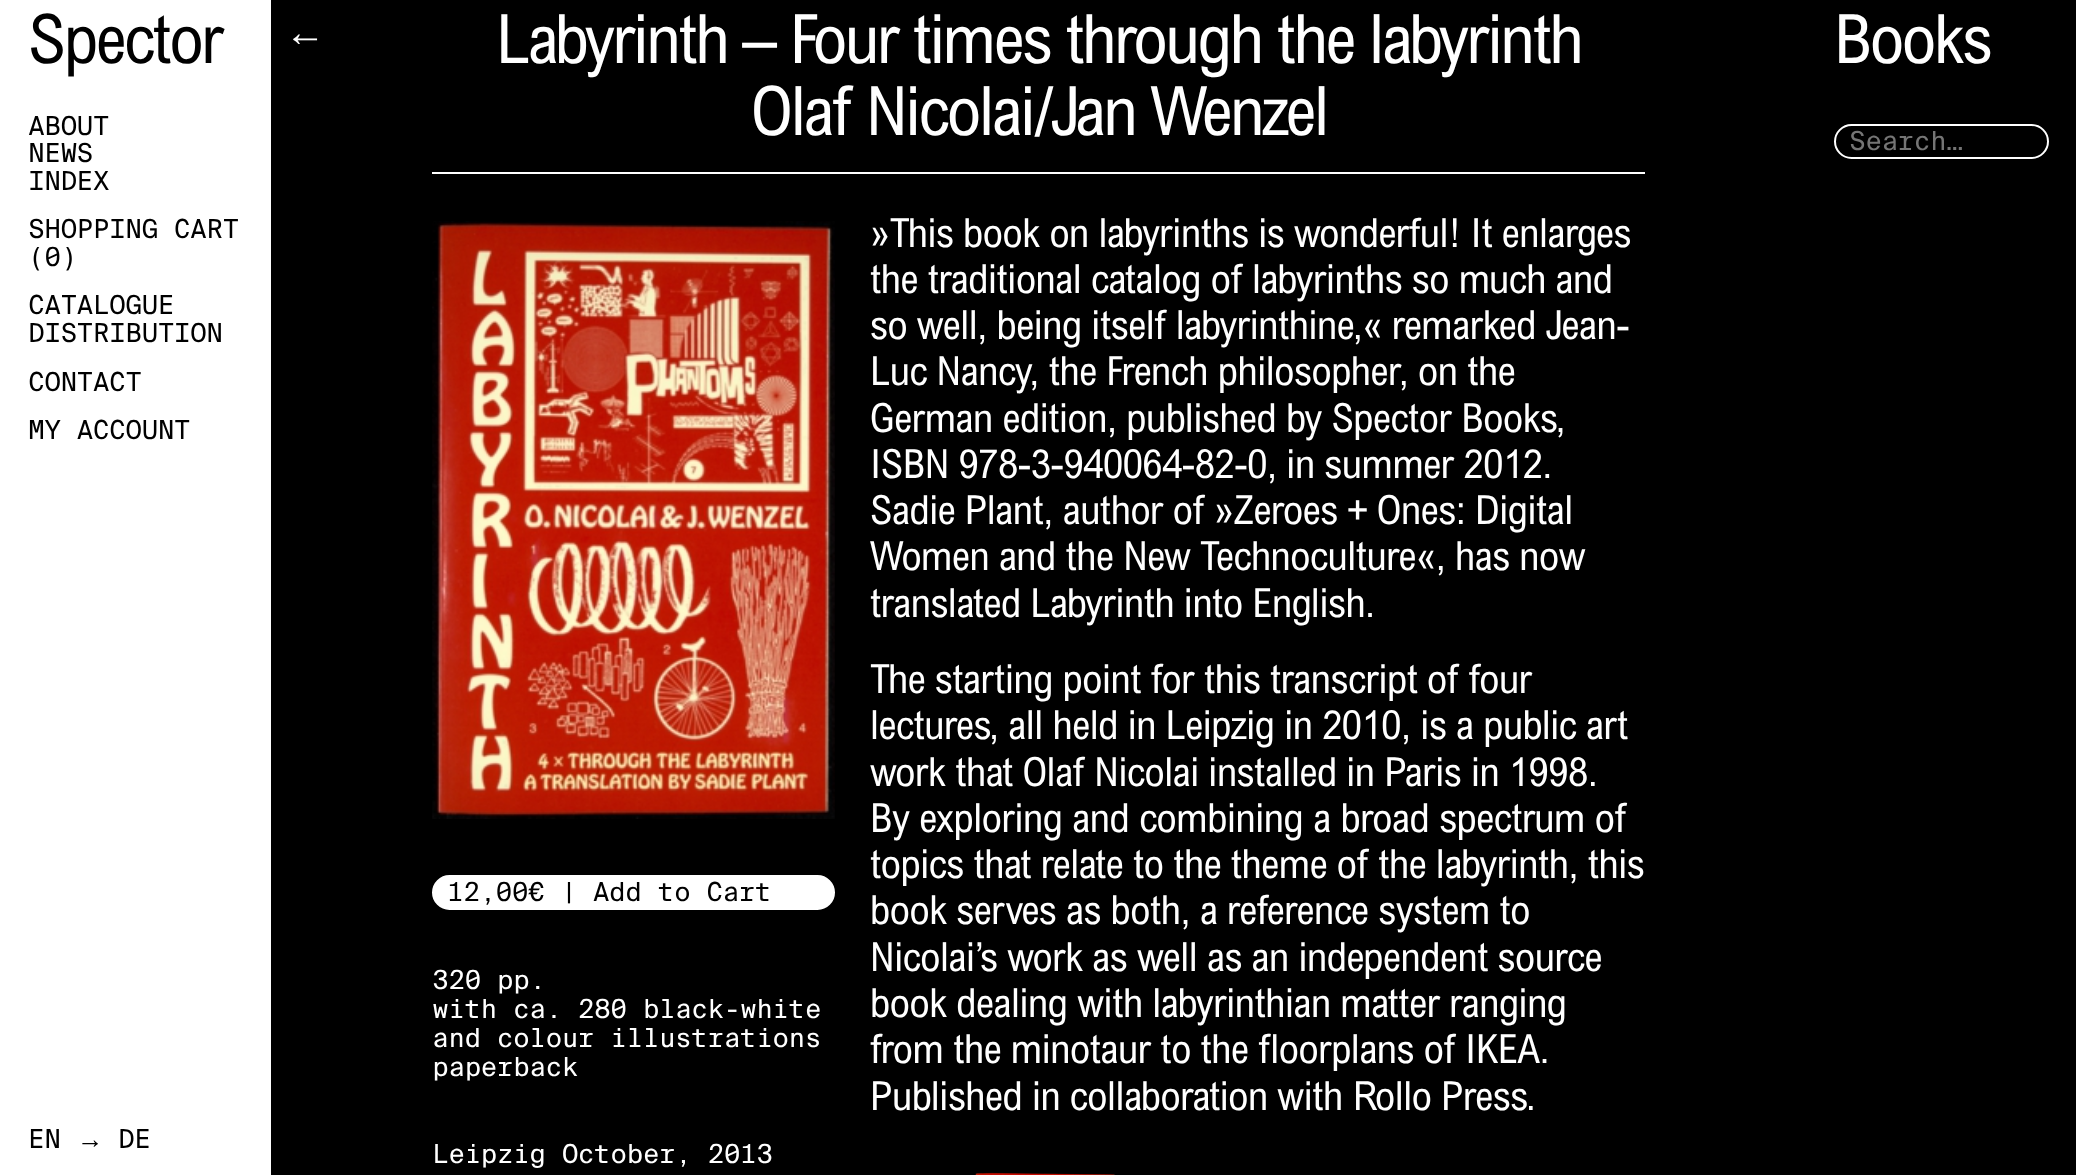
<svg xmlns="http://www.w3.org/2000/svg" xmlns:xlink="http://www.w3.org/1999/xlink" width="2076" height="1175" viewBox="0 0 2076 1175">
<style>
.cls-1{font:500 68.25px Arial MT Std;letter-spacing:-2.05px;fill:#000000}
.cls-2{font:26.25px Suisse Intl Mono;letter-spacing:-0.75px;fill:#000000}
.cls-3{font:26.25px Liberation Sans;letter-spacing:-0.75px;fill:#000000}
.cls-4{font:40.25px Liberation Sans;letter-spacing:-0.4px;fill:#ffffff}
.cls-5{font:500 68.25px Arial MT Std;letter-spacing:-2.05px;fill:#ffffff}
.cls-6{font:26.25px Suisse Intl Mono;letter-spacing:-0.75px;fill:#ffffff}
.cls-7{font:500 40.25px Arial MT Std;letter-spacing:-0.4px;fill:#ffffff}
.cls-8{font:26.25px Suisse Intl Mono;letter-spacing:-0.75px;fill:#757575}
</style>
<rect width="100%" height="100%" fill="#ffffff"/>
<rect fill="#000000" x="271" y="0" width="1805" height="1175"/>
<rect fill="#ffffff" x="432" y="172" width="1213" height="2"/>
<image xlink:href="image0.png" x="432" y="221" width="403" height="598"/>
<rect fill="#ffffff" stroke="#ffffff" stroke-width="2" x="433" y="876" width="401" height="33" rx="16.5"/>
<image xlink:href="image1.png" x="975" y="1172" width="140" height="3"/>
<rect fill="none" stroke="#ffffff" stroke-width="2" x="1835" y="125" width="213" height="33" rx="16.5"/>
<text class="cls-1" x="28" y="63">Spector</text>
<text class="cls-2"><tspan x="28" y="135">ABOUT</tspan><tspan x="28" y="162">NEWS</tspan><tspan x="28" y="190">INDEX</tspan><tspan x="28" y="238">SHOPPING CART</tspan><tspan x="28" y="266">(0)</tspan><tspan x="28" y="314">CATALOGUE</tspan><tspan x="28" y="342">DISTRIBUTION</tspan><tspan x="28" y="391">CONTACT</tspan><tspan x="28" y="439">MY ACCOUNT</tspan></text>
<text class="cls-2" x="28" y="1148">EN</text>
<text class="cls-3" x="77" y="1148">→</text>
<text class="cls-2" x="118" y="1148">DE</text>
<text class="cls-4" x="285" y="46">←</text>
<text class="cls-5" x="496" y="63">Labyrinth – Four times through the labyrinth</text>
<text class="cls-5" x="751" y="135">Olaf Nicolai/Jan Wenzel</text>
<text class="cls-2" x="447" y="901">12,00€ | Add to Cart</text>
<text class="cls-6"><tspan x="432" y="989">320 pp.</tspan><tspan x="432" y="1018">with ca. 280 black-white</tspan><tspan x="432" y="1047">and colour illustrations</tspan><tspan x="432" y="1076">paperback</tspan></text>
<text class="cls-6" x="432" y="1163">Leipzig October, 2013</text>
<text class="cls-7"><tspan x="870" y="247">»This book on labyrinths is wonderful! It enlarges</tspan><tspan x="870" y="293">the traditional catalog of labyrinths so much and</tspan><tspan x="870" y="339">so well, being itself labyrinthine,« remarked Jean-</tspan><tspan x="870" y="385">Luc Nancy, the French philosopher, on the</tspan><tspan x="870" y="432">German edition, published by Spector Books,</tspan><tspan x="870" y="478">ISBN 978-3-940064-82-0, in summer 2012.</tspan><tspan x="870" y="524">Sadie Plant, author of »Zeroes + Ones: Digital</tspan><tspan x="870" y="570">Women and the New Technoculture«, has now</tspan><tspan x="870" y="617">translated Labyrinth into English.</tspan><tspan x="870" y="693">The starting point for this transcript of four</tspan><tspan x="870" y="739">lectures, all held in Leipzig in 2010, is a public art</tspan><tspan x="870" y="786">work that Olaf Nicolai installed in Paris in 1998.</tspan><tspan x="870" y="832" word-spacing="0.25">By exploring and combining a broad spectrum of</tspan><tspan x="870" y="878">topics that relate to the theme of the labyrinth, this</tspan><tspan x="870" y="924">book serves as both, a reference system to</tspan><tspan x="870" y="971">Nicolai’s work as well as an independent source</tspan><tspan x="870" y="1017">book dealing with labyrinthian matter ranging</tspan><tspan x="870" y="1063">from the minotaur to the floorplans of IKEA.</tspan><tspan x="870" y="1110">Published in collaboration with Rollo Press.</tspan></text>
<text class="cls-5" x="1834" y="63">Books</text>
<text class="cls-8" x="1849" y="150">Search…</text>
</svg>
